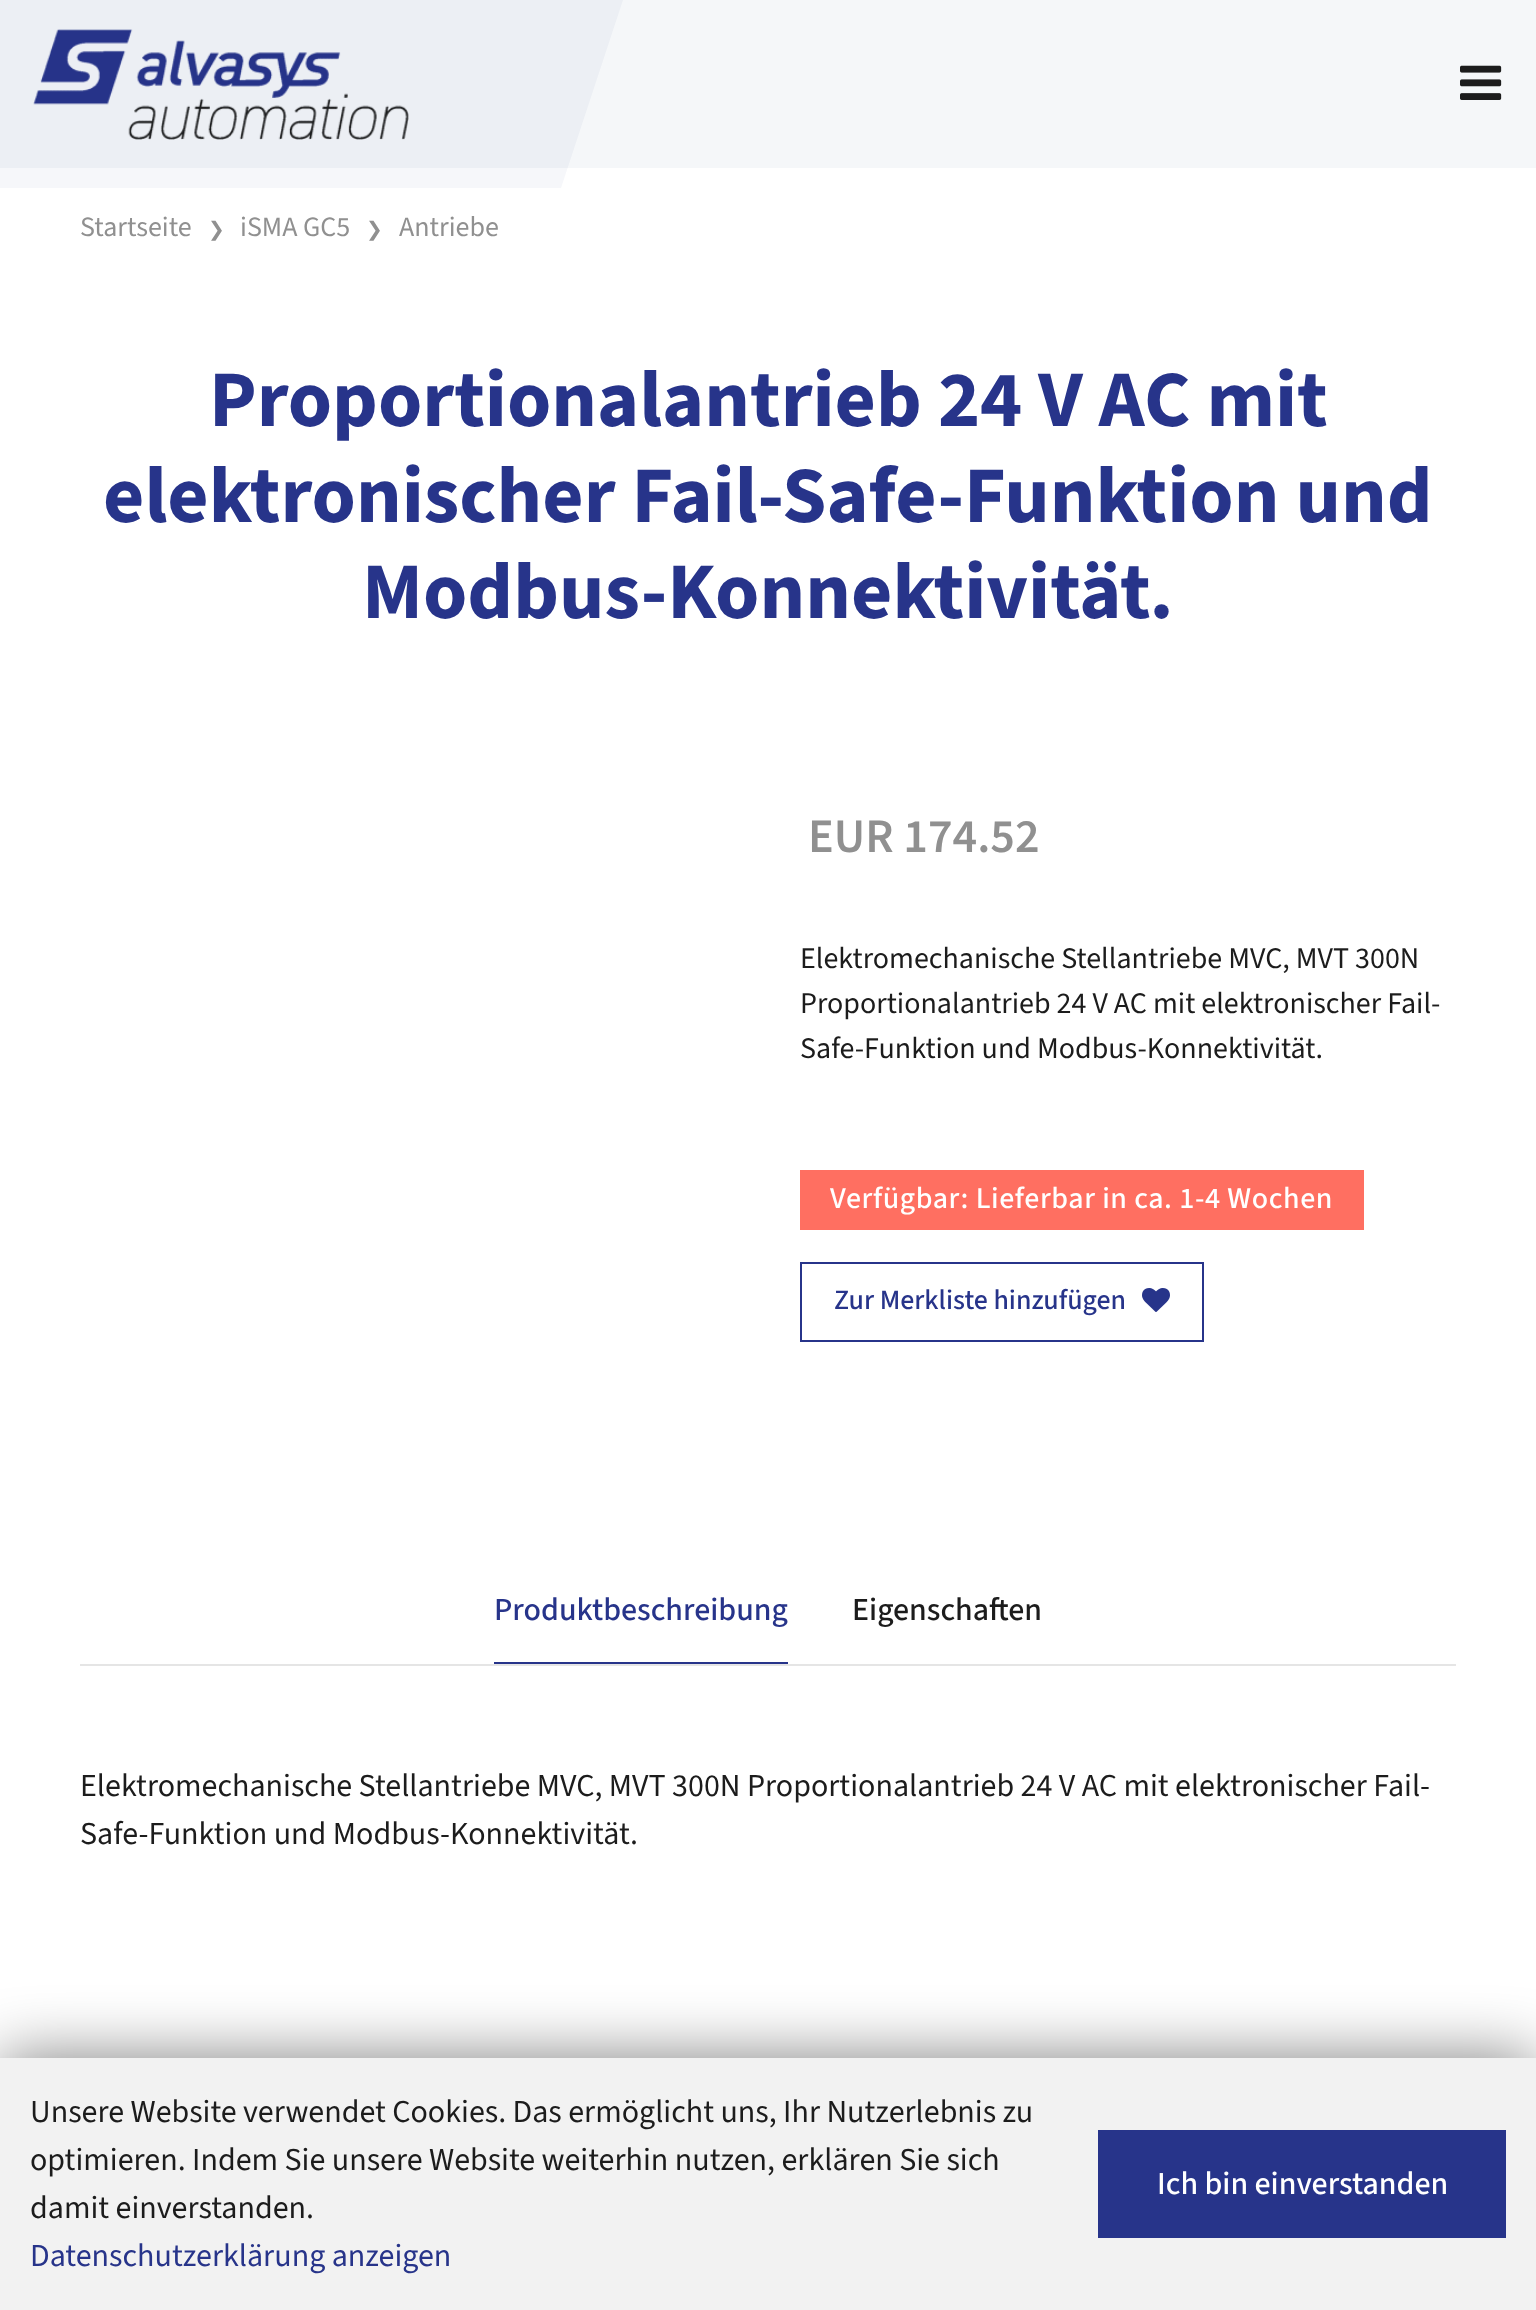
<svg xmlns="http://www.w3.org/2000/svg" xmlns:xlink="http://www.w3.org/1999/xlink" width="1536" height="2310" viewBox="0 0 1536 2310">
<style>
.cls-1{font:28px 'Source Sans 3';fill:#909090}
.cls-2{font:20px DejaVu Sans;fill:#909090}
.cls-3{font:bold 80px 'Source Sans 3';fill:#27348a}
.cls-4{font:600 48px 'Source Sans 3';fill:#909090}
.cls-5{font:30px 'Source Sans 3';fill:#1c1c1c}
.cls-6{font:500 30px 'Source Sans 3';letter-spacing:0.6px;fill:#ffffff}
.cls-7{font:500 28px 'Source Sans 3';fill:#27348a}
.cls-8{font:500 32px 'Source Sans 3';fill:#27348a}
.cls-9{font:500 32px 'Source Sans 3';fill:#1c1c1c}
.cls-10{font:32px 'Source Sans 3';fill:#1c1c1c}
.cls-11{font:32px 'Source Sans 3';fill:#27348a}
.cls-12{font:500 32px 'Source Sans 3';fill:#ffffff}
</style>
<rect width="100%" height="100%" fill="#ffffff"/>
<rect fill="#f5f7f9" x="0" y="0" width="1536" height="168"/>
<image xlink:href="image0.png" x="33" y="29" width="376" height="111"/>
<path fill="#253285" fill-opacity="0.04" d="M-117 0H623L561 188H-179Z"/>
<image xlink:href="image1.png" x="1460" y="65" width="42" height="35"/>
<rect fill="#ff6f61" x="800" y="1170" width="564" height="60"/>
<rect fill="none" stroke="#27348a" stroke-width="2" x="801" y="1263" width="402" height="78"/>
<image xlink:href="image2.png" x="1142" y="1288" width="28" height="24"/>
<rect fill="#e5e5e5" x="80" y="1664" width="1376" height="2"/>
<rect fill="#27348a" x="494" y="1662" width="294" height="2"/>
<rect fill="#000000" fill-opacity="0.5" filter="blur(32px)" x="0" y="2058" width="1536" height="252"/>
<rect fill="#f2f2f2" x="0" y="2058" width="1536" height="252"/>
<rect fill="#27348a" x="1098" y="2130" width="408" height="108"/>
<text class="cls-1" x="80" y="236">Startseite</text>
<text class="cls-2" x="208" y="236">❯</text>
<text class="cls-1" x="240" y="236">iSMA GC5</text>
<text class="cls-2" x="366" y="236">❯</text>
<text class="cls-1" x="399" y="236">Antriebe</text>
<text class="cls-3" x="209" y="426">Proportionalantrieb 24 V AC mit</text>
<text class="cls-3" x="103" y="522">elektronischer Fail-Safe-Funktion und</text>
<text class="cls-3" x="362" y="618">Modbus-Konnektivität.</text>
<text class="cls-4" x="808" y="852">EUR 174.52</text>
<text class="cls-5"><tspan x="800" y="968">Elektromechanische Stellantriebe MVC, MVT 300N</tspan><tspan x="800" y="1013">Proportionalantrieb 24 V AC mit elektronischer Fail-</tspan><tspan x="800" y="1058">Safe-Funktion und Modbus-Konnektivität.</tspan></text>
<text class="cls-6" x="830" y="1208">Verfügbar: Lieferbar in ca. 1-4 Wochen</text>
<text class="cls-7" x="834" y="1309">Zur Merkliste hinzufügen</text>
<text class="cls-8" x="494" y="1620">Produktbeschreibung</text>
<text class="cls-9" x="852" y="1620">Eigenschaften</text>
<text class="cls-10"><tspan x="80" y="1796">Elektromechanische Stellantriebe MVC, MVT 300N Proportionalantrieb 24 V AC mit elektronischer Fail-</tspan><tspan x="80" y="1844">Safe-Funktion und Modbus-Konnektivität.</tspan></text>
<text class="cls-10"><tspan x="30" y="2122">Unsere Website verwendet Cookies. Das ermöglicht uns, Ihr Nutzerlebnis zu</tspan><tspan x="30" y="2170">optimieren. Indem Sie unsere Website weiterhin nutzen, erklären Sie sich</tspan><tspan x="30" y="2218">damit einverstanden.</tspan></text>
<text class="cls-11" x="30" y="2266">Datenschutzerklärung anzeigen</text>
<text class="cls-12" x="1157" y="2194">Ich bin einverstanden</text>
</svg>
